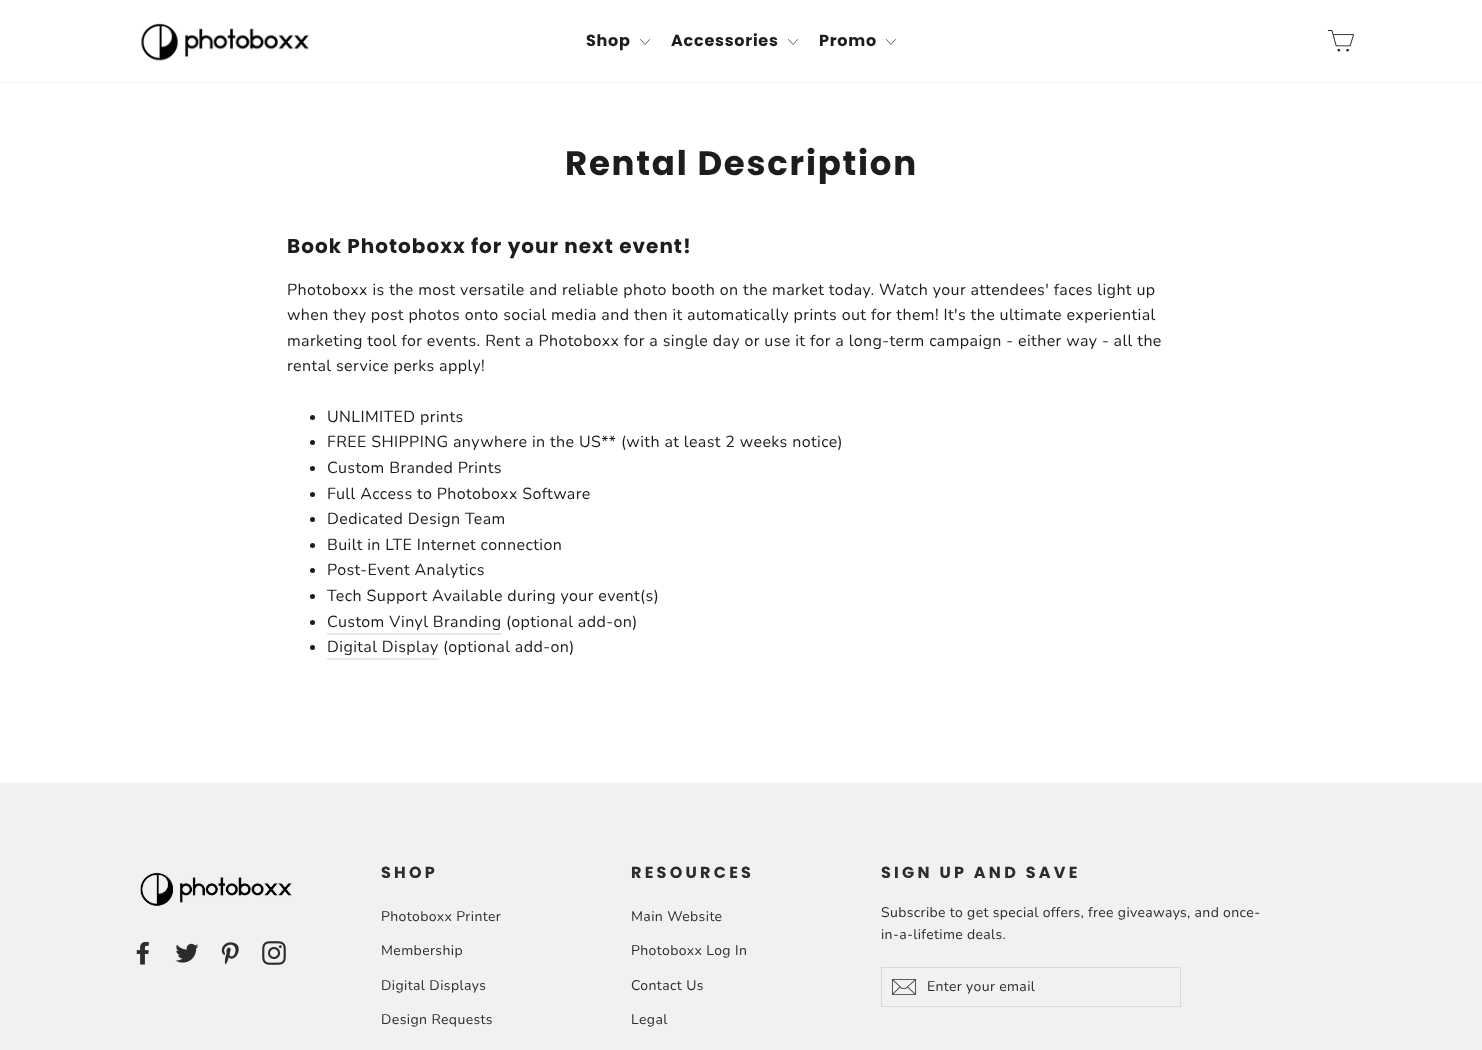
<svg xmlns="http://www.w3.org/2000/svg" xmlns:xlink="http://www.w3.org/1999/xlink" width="1482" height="1050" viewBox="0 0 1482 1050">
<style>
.cls-1{font:bold 16px Poppins;letter-spacing:0.75px;fill:#1c1d1d}
.cls-2{font:bold 34px Poppins;letter-spacing:1.75px;fill:#1c1d1d}
.cls-3{font:bold 20px Poppins;letter-spacing:1px;fill:#1c1d1d}
.cls-4{font:16px Nunito;letter-spacing:0.4px;fill:#1c1d1d}
.cls-5{font:bold 16px Poppins;letter-spacing:3.25px;fill:#2c2c2c}
.cls-6{font:14px Nunito;letter-spacing:0.4px;fill:#2c2c2c}
.cls-7{font:14px Nunito;letter-spacing:0.35px;fill:#2c2c2c}
</style>
<rect width="100%" height="100%" fill="#ffffff"/>
<rect fill="#f0f1f3" x="0" y="82" width="1482" height="1"/>
<image xlink:href="image0.png" x="141" y="23" width="168" height="38"/>
<path fill="none" stroke="#1c1d1d" stroke-width="0.7" stroke-linecap="round" stroke-linejoin="round" d="M640.5 39.5L645 44.5L649.5 39.5"/>
<path fill="none" stroke="#1c1d1d" stroke-width="0.7" stroke-linecap="round" stroke-linejoin="round" d="M788.5 39.5L793 44.5L797.5 39.5"/>
<path fill="none" stroke="#1c1d1d" stroke-width="0.7" stroke-linecap="round" stroke-linejoin="round" d="M886.5 39.5L891 44.5L895.5 39.5"/>
<image xlink:href="image1.png" x="1327" y="30" width="27" height="22"/>
<circle fill="#1c1d1d" cx="312.5" cy="417.5" r="2.5"/>
<circle fill="#1c1d1d" cx="312.5" cy="442.5" r="2.5"/>
<circle fill="#1c1d1d" cx="312.5" cy="468.5" r="2.5"/>
<circle fill="#1c1d1d" cx="312.5" cy="494.5" r="2.5"/>
<circle fill="#1c1d1d" cx="312.5" cy="519.5" r="2.5"/>
<circle fill="#1c1d1d" cx="312.5" cy="545.5" r="2.5"/>
<circle fill="#1c1d1d" cx="312.5" cy="570.5" r="2.5"/>
<circle fill="#1c1d1d" cx="312.5" cy="596.5" r="2.5"/>
<circle fill="#1c1d1d" cx="312.5" cy="622.5" r="2.5"/>
<rect fill="#e8e8e8" x="327" y="633" width="175" height="2"/>
<circle fill="#1c1d1d" cx="312.5" cy="647.5" r="2.5"/>
<rect fill="#e8e8e8" x="327" y="658" width="112" height="2"/>
<rect fill="#f0f1f3" x="0" y="783" width="1482" height="267"/>
<image xlink:href="image2.png" x="140" y="872" width="152" height="34"/>
<image xlink:href="image3.png" x="136" y="941" width="13" height="24"/>
<image xlink:href="image4.png" x="175" y="943" width="24" height="20"/>
<image xlink:href="image5.png" x="221" y="942" width="18" height="23"/>
<image xlink:href="image6.png" x="262" y="941" width="24" height="24"/>
<rect fill="none" stroke="#d8d9db" x="881.5" y="967.5" width="299" height="39"/>
<image xlink:href="image7.png" x="891" y="979" width="26" height="16"/>
<text class="cls-1" x="586" y="46">Shop</text>
<text class="cls-1" x="671" y="46">Accessories</text>
<text class="cls-1" x="819" y="46">Promo</text>
<text class="cls-2" x="565" y="175">Rental Description</text>
<text class="cls-3" x="287" y="253">Book Photoboxx for your next event!</text>
<text class="cls-4"><tspan x="287" y="295">Photoboxx is the most versatile and reliable photo booth on the market today. Watch your attendees' faces light up</tspan><tspan x="287" y="320">when they post photos onto social media and then it automatically prints out for them! It's the ultimate experiential</tspan><tspan x="287" y="346">marketing tool for events. Rent a Photoboxx for a single day or use it for a long-term campaign - either way - all the</tspan><tspan x="287" y="371">rental service perks apply!</tspan></text>
<text class="cls-4"><tspan x="327" y="422">UNLIMITED prints</tspan><tspan x="327" y="447">FREE SHIPPING anywhere in the US** (with at least 2 weeks notice)</tspan><tspan x="327" y="473">Custom Branded Prints</tspan><tspan x="327" y="499">Full Access to Photoboxx Software</tspan><tspan x="327" y="524">Dedicated Design Team</tspan><tspan x="327" y="550">Built in LTE Internet connection</tspan><tspan x="327" y="575">Post-Event Analytics</tspan><tspan x="327" y="601">Tech Support Available during your event(s)</tspan><tspan x="327" y="627">Custom Vinyl Branding</tspan></text>
<text class="cls-4" x="506" y="627">(optional add-on)</text>
<text class="cls-4" x="327" y="652">Digital Display</text>
<text class="cls-4" x="443" y="652">(optional add-on)</text>
<text class="cls-5" x="381" y="878">SHOP</text>
<text class="cls-6" x="381" y="921">Photoboxx Printer</text>
<text class="cls-6" x="381" y="955">Membership</text>
<text class="cls-6" x="381" y="990">Digital Displays</text>
<text class="cls-6" x="381" y="1024">Design Requests</text>
<text class="cls-5" x="631" y="878">RESOURCES</text>
<text class="cls-6" x="631" y="921">Main Website</text>
<text class="cls-6" x="631" y="955">Photoboxx Log In</text>
<text class="cls-6" x="631" y="990">Contact Us</text>
<text class="cls-6" x="631" y="1024">Legal</text>
<text class="cls-5" x="881" y="878">SIGN UP AND SAVE</text>
<text class="cls-7"><tspan x="881" y="917">Subscribe to get special offers, free giveaways, and once-</tspan><tspan x="881" y="939">in-a-lifetime deals.</tspan></text>
<text class="cls-7" x="927" y="991">Enter your email</text>
</svg>
